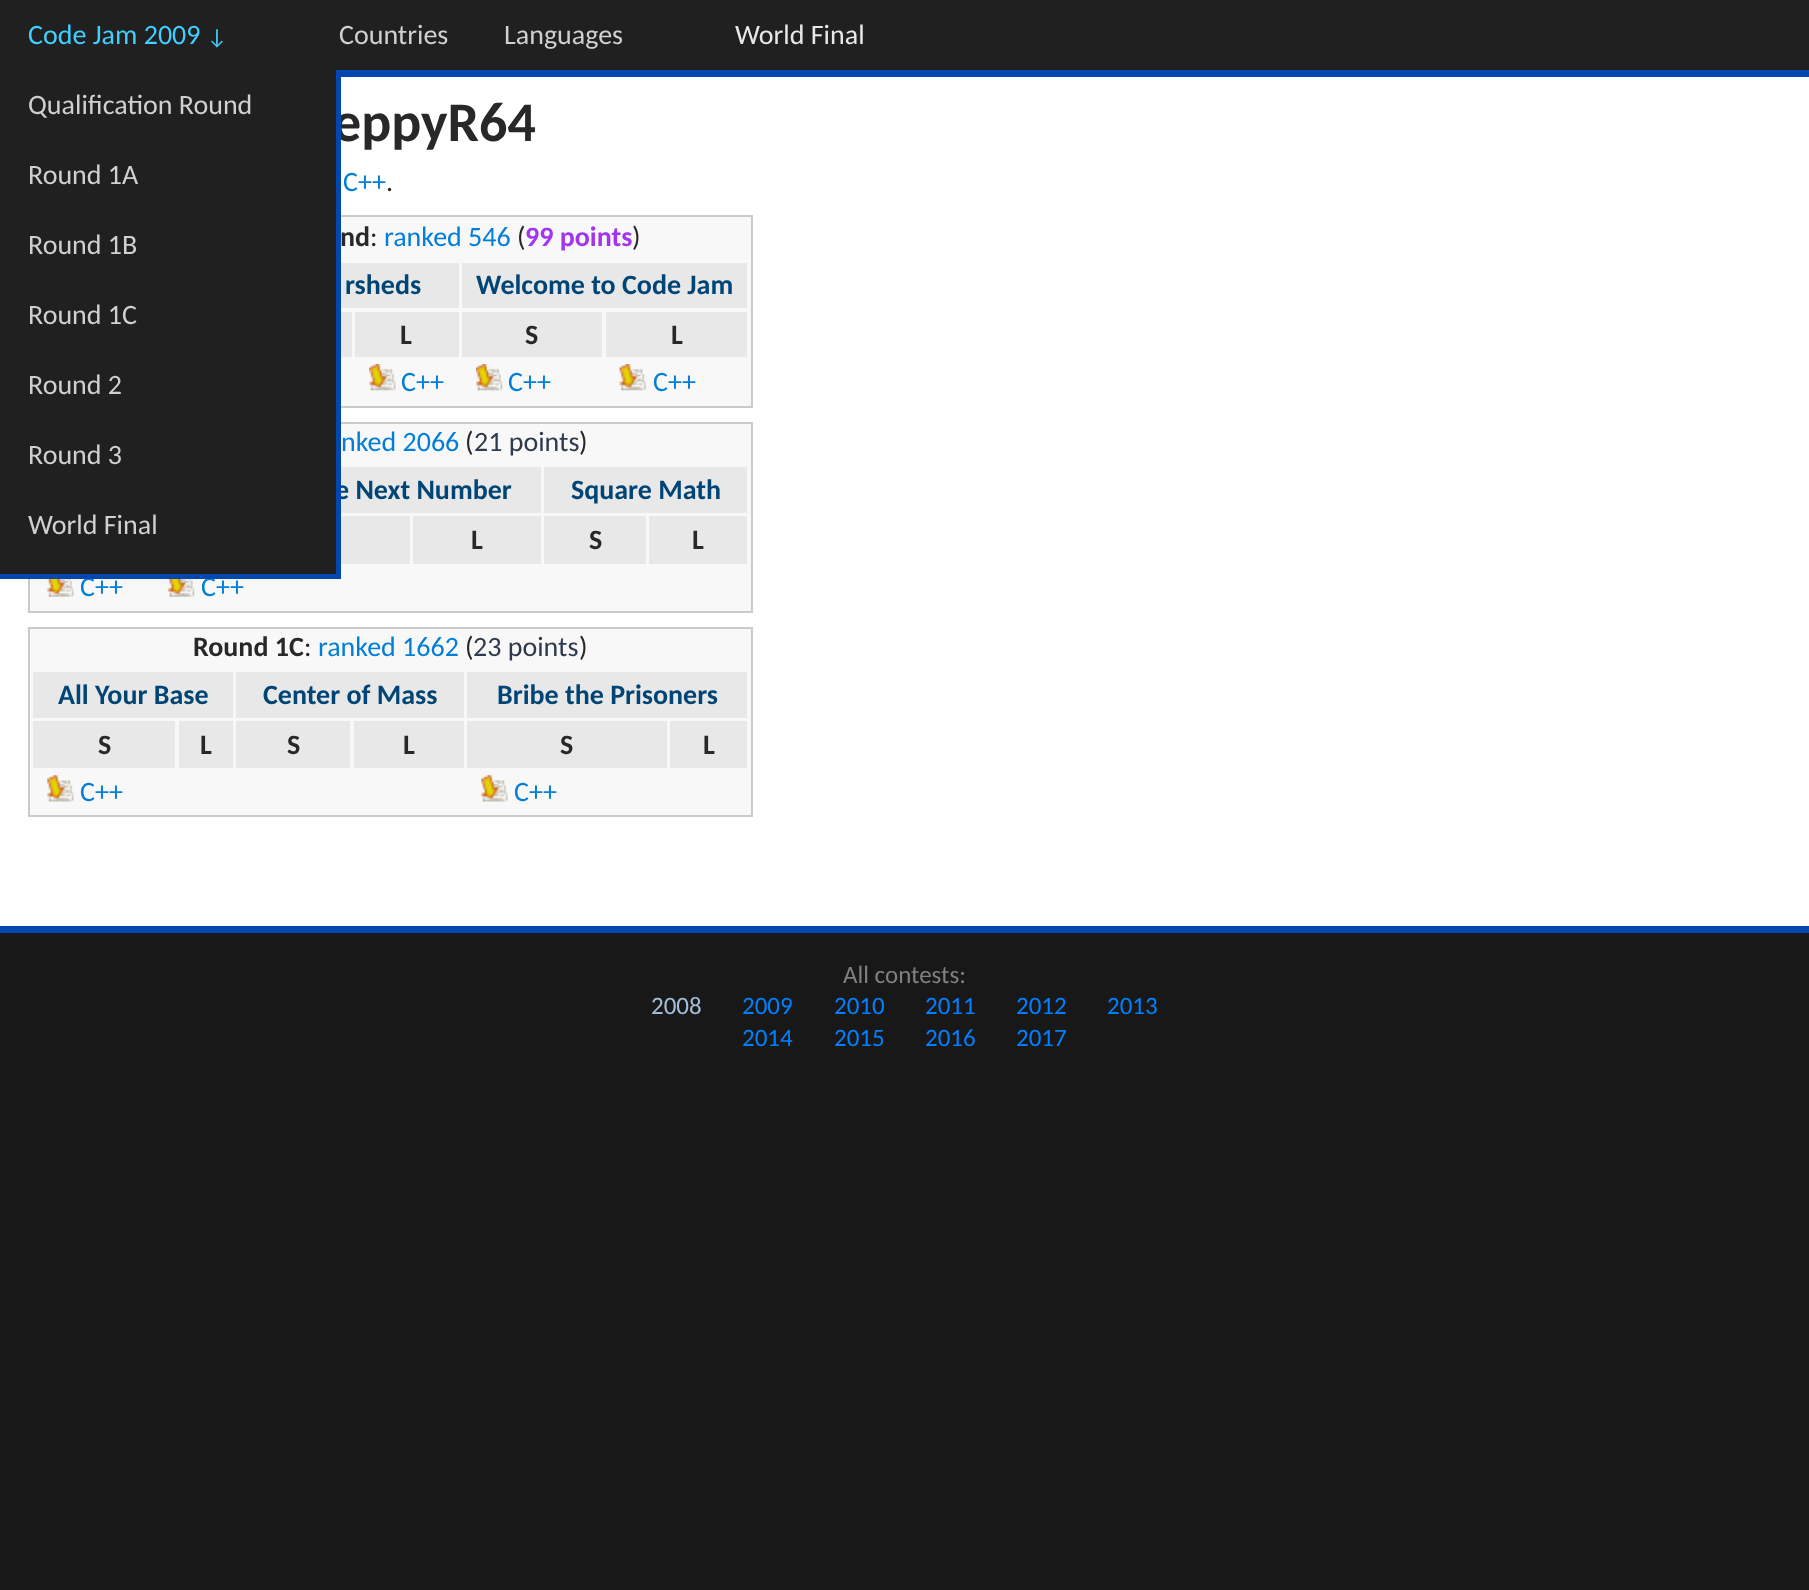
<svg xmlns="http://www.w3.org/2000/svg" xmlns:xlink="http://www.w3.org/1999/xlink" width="1809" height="1590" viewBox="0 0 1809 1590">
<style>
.cls-1{font:28px Carlito;fill:#40cfff}
.cls-2{font:22px Carlito;fill:#40cfff}
.cls-3{font:28px Carlito;fill:#d0d0d0}
.cls-4{font:28px Carlito;fill:#e8e8e8}
.cls-5{font:bold 56px Carlito;fill:#282828}
.cls-6{font:28px Carlito;fill:#007ed9}
.cls-7{font:28px Carlito;fill:#282828}
.cls-8{font:bold 28px Carlito;fill:#282828}
.cls-9{font:bold 28px Carlito;fill:#a335ee}
.cls-10{font:bold 28px Carlito;fill:#004575}
.cls-11{font:28px Carlito;fill:#2e3a4d}
.cls-12{font:25px Carlito;fill:#808080}
.cls-13{font:25px Carlito;fill:#a3bed9}
.cls-14{font:25px Carlito;fill:#0080ff}
</style>
<rect width="100%" height="100%" fill="#181818"/>
<rect fill="#202020" x="0" y="0" width="1809" height="70"/>
<rect fill="#ffffff" x="0" y="77" width="1809" height="849"/>
<rect fill="#0048b0" x="341" y="70" width="1468" height="7"/>
<rect fill="#0048b0" x="0" y="926" width="1809" height="7"/>
<rect fill="#f8f8f8" x="341" y="217" width="410" height="189"/>
<rect fill="none" stroke="#cacaca" stroke-width="2" x="29" y="216" width="723" height="191"/>
<rect fill="#e8e8e8" x="341" y="263" width="118" height="45"/>
<rect fill="#e8e8e8" x="462" y="263" width="285" height="45"/>
<rect fill="#e8e8e8" x="341" y="312" width="11" height="45"/>
<rect fill="#e8e8e8" x="355" y="312" width="104" height="45"/>
<rect fill="#e8e8e8" x="462" y="312" width="140" height="45"/>
<rect fill="#e8e8e8" x="606" y="312" width="141" height="45"/>
<image xlink:href="image0.png" x="369" y="364" width="27" height="27"/>
<image xlink:href="image1.png" x="476" y="364" width="27" height="27"/>
<image xlink:href="image2.png" x="619" y="364" width="27" height="27"/>
<rect fill="#f8f8f8" stroke="#cacaca" stroke-width="2" x="29" y="423" width="723" height="189"/>
<rect fill="#e8e8e8" x="341" y="467" width="200" height="46"/>
<rect fill="#e8e8e8" x="544" y="467" width="203" height="46"/>
<rect fill="#e8e8e8" x="341" y="516" width="69" height="48"/>
<rect fill="#e8e8e8" x="413" y="516" width="128" height="48"/>
<rect fill="#e8e8e8" x="544" y="516" width="102" height="48"/>
<rect fill="#e8e8e8" x="649" y="516" width="98" height="48"/>
<image xlink:href="image3.png" x="47" y="579" width="27" height="18"/>
<image xlink:href="image4.png" x="168" y="579" width="27" height="18"/>
<rect fill="#f8f8f8" stroke="#cacaca" stroke-width="2" x="29" y="628" width="723" height="188"/>
<rect fill="#e8e8e8" x="33" y="672" width="200" height="46"/>
<rect fill="#e8e8e8" x="236" y="672" width="228" height="46"/>
<rect fill="#e8e8e8" x="467" y="672" width="280" height="46"/>
<rect fill="#e8e8e8" x="33" y="721" width="142" height="47"/>
<rect fill="#e8e8e8" x="179" y="721" width="54" height="47"/>
<rect fill="#e8e8e8" x="236" y="721" width="114" height="47"/>
<rect fill="#e8e8e8" x="354" y="721" width="110" height="47"/>
<rect fill="#e8e8e8" x="467" y="721" width="200" height="47"/>
<rect fill="#e8e8e8" x="670" y="721" width="77" height="47"/>
<image xlink:href="image5.png" x="47" y="775" width="27" height="27"/>
<image xlink:href="image6.png" x="481" y="775" width="27" height="27"/>
<text class="cls-1" x="28" y="44">Code Jam 2009</text>
<text class="cls-2" x="207" y="44">↓</text>
<text class="cls-3" x="339" y="44">Countries</text>
<text class="cls-3" x="504" y="44">Languages</text>
<text class="cls-4" x="735" y="44">World Final</text>
<text class="cls-5" x="333" y="141">eppyR64</text>
<text class="cls-6" x="343" y="191">C++</text>
<text class="cls-7" x="386" y="191">.</text>
<text class="cls-8" x="340" y="246">nd</text>
<text class="cls-7" x="370" y="246">:</text>
<text class="cls-6" x="384" y="246">ranked 546</text>
<text class="cls-7" x="517" y="246">(</text>
<text class="cls-9" x="525" y="246">99 points</text>
<text class="cls-7" x="632" y="246">)</text>
<text class="cls-10" x="345" y="294">rsheds</text>
<text class="cls-10" x="476" y="294">Welcome to Code Jam</text>
<text class="cls-8" x="400" y="344">L</text>
<text class="cls-8" x="525" y="344">S</text>
<text class="cls-8" x="671" y="344">L</text>
<text class="cls-6" x="401" y="391">C++</text>
<text class="cls-6" x="508" y="391">C++</text>
<text class="cls-6" x="653" y="391">C++</text>
<text class="cls-6" x="341" y="451">nked 2066</text>
<text class="cls-7" x="465" y="451">(</text>
<text class="cls-11" x="474" y="451">21 points</text>
<text class="cls-7" x="579" y="451">)</text>
<text class="cls-10" x="335" y="499">e Next Number</text>
<rect fill="#202020" x="0" y="70" width="336" height="504"/>
<text class="cls-3" x="28" y="534">World Final</text>
<text class="cls-3" x="28" y="464">Round 3</text>
<text class="cls-3" x="28" y="394">Round 2</text>
<text class="cls-3" x="28" y="324">Round 1C</text>
<text class="cls-3" x="28" y="254">Round 1B</text>
<text class="cls-3" x="28" y="184">Round 1A</text>
<text class="cls-3" x="28" y="114">Qualification Round</text>
<rect fill="#0048b0" x="336" y="70" width="5" height="509"/>
<text class="cls-10" x="571" y="499">Square Math</text>
<text class="cls-8" x="471" y="549">L</text>
<text class="cls-8" x="589" y="549">S</text>
<text class="cls-8" x="692" y="549">L</text>
<text class="cls-6" x="80" y="596">C++</text>
<text class="cls-6" x="201" y="596">C++</text>
<rect fill="#0048b0" x="0" y="574" width="341" height="5"/>
<text class="cls-8" x="193" y="656">Round 1C</text>
<text class="cls-7" x="304" y="656">:</text>
<text class="cls-6" x="318" y="656">ranked 1662</text>
<text class="cls-7" x="465" y="656">(</text>
<text class="cls-11" x="473" y="656">23 points</text>
<text class="cls-7" x="579" y="656">)</text>
<text class="cls-10" x="58" y="704">All Your Base</text>
<text class="cls-10" x="263" y="704">Center of Mass</text>
<text class="cls-10" x="497" y="704">Bribe the Prisoners</text>
<text class="cls-8" x="98" y="754">S</text>
<text class="cls-8" x="200" y="754">L</text>
<text class="cls-8" x="287" y="754">S</text>
<text class="cls-8" x="403" y="754">L</text>
<text class="cls-8" x="560" y="754">S</text>
<text class="cls-8" x="703" y="754">L</text>
<text class="cls-6" x="80" y="801">C++</text>
<text class="cls-6" x="514" y="801">C++</text>
<text class="cls-12" x="843" y="983">All contests:</text>
<text class="cls-13" x="651" y="1014">2008</text>
<text class="cls-14" x="742" y="1014">2009</text>
<text class="cls-14" x="834" y="1014">2010</text>
<text class="cls-14" x="925" y="1014">2011</text>
<text class="cls-14" x="1016" y="1014">2012</text>
<text class="cls-14" x="1107" y="1014">2013</text>
<text class="cls-14" x="742" y="1046">2014</text>
<text class="cls-14" x="834" y="1046">2015</text>
<text class="cls-14" x="925" y="1046">2016</text>
<text class="cls-14" x="1016" y="1046">2017</text>
</svg>
